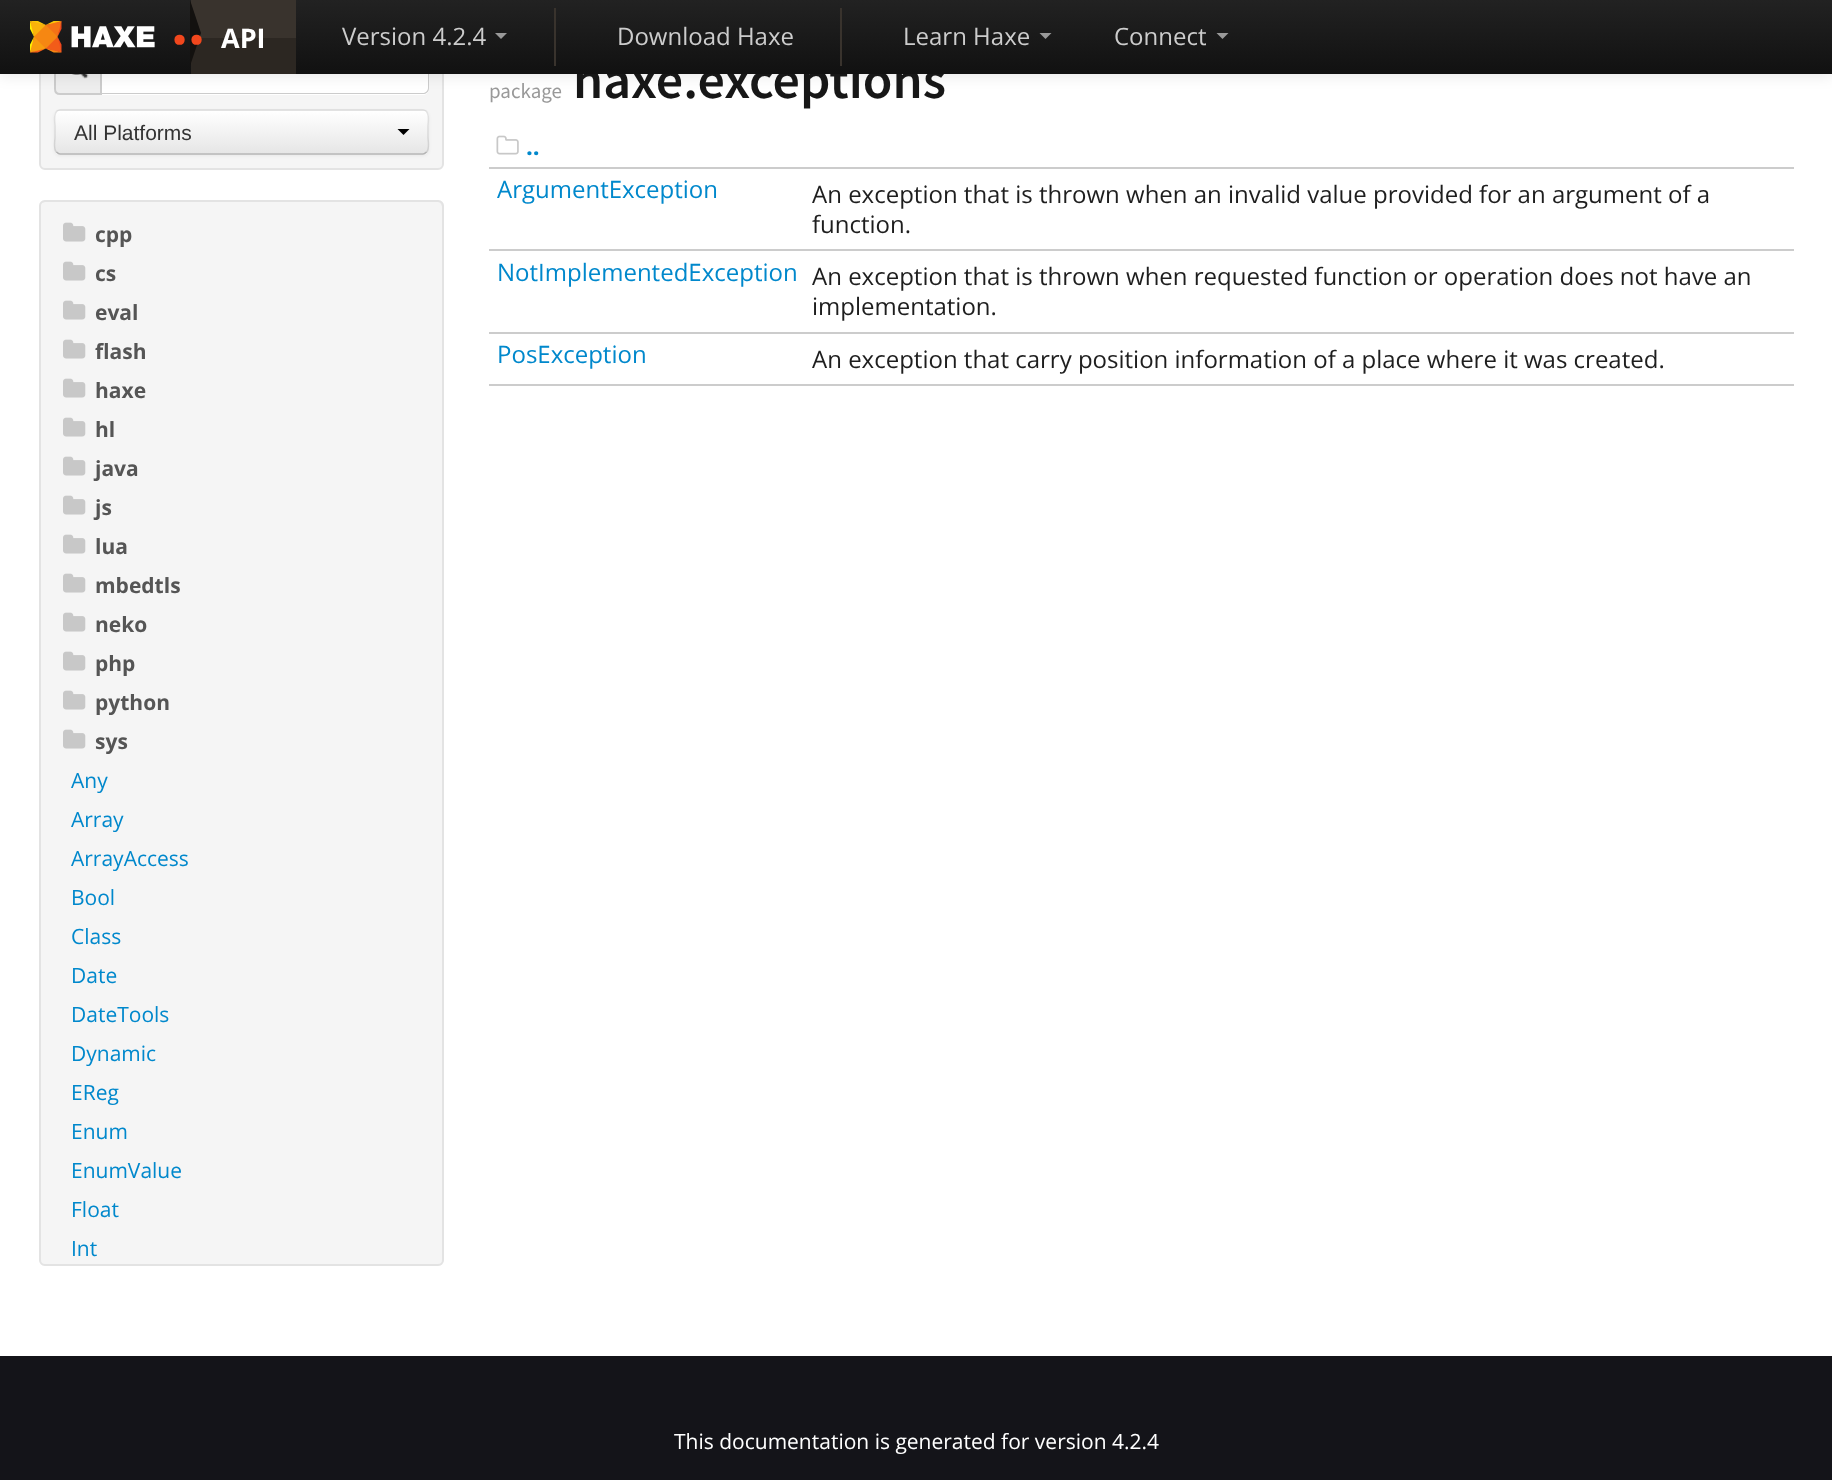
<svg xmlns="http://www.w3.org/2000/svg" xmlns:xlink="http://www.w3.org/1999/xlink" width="1832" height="1480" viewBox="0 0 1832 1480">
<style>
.cls-1{font:21px Liberation Sans;fill:#333333}
.cls-2{font:bold 21px Open Sans;fill:#555555}
.cls-3{font:21px Open Sans;fill:#0088cc}
.cls-4{font:21px Source Sans Pro;fill:#999999}
.cls-5{font:600 54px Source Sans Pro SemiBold;fill:#171717}
.cls-6{font:24px Open Sans;fill:#cccccc}
.cls-7{font:bold 60px Open Sans;fill:#f1471d}
.cls-8{font:bold 27px Open Sans;fill:#ffffff}
.cls-9{font:bold 24px Open Sans;fill:#0088cc}
.cls-10{font:24px Open Sans;fill:#0088cc}
.cls-11{font:24px Open Sans;fill:#1e1e1e}
.cls-12{font:21px Open Sans;fill:#ffffff}
</style>
<defs>
<clipPath id="clip1"><rect x="54" y="110" width="375" height="45" rx="6"/></clipPath>
<linearGradient id="g1" gradientUnits="userSpaceOnUse" x1="242" y1="111" x2="242" y2="153"><stop offset="0" stop-color="#ffffff"/><stop offset="1" stop-color="#e6e6e6"/></linearGradient>
<linearGradient id="g2" gradientUnits="userSpaceOnUse" x1="917" y1="0" x2="917" y2="74"><stop offset="0" stop-color="#222222"/><stop offset="1" stop-color="#111111"/></linearGradient>
</defs>
<rect width="100%" height="100%" fill="#ffffff"/>
<rect fill="#f5f5f5" stroke="#e3e3e3" stroke-width="2" x="40" y="36" width="403" height="133" rx="5"/>
<path fill="#eeeeee" stroke="#cccccc" stroke-width="2" d="M60 51H101V94H60C57 94 55 92 55 89V56C55 53 57 51 60 51Z"/>
<image xlink:href="image1.png" x="70" y="74" width="19" height="5"/>
<path fill="#ffffff" d="M102 50H423C426.5 50 429 52.5 429 56V89C429 92.5 426.5 95 423 95H102Z"/>
<path fill="#cccccc" fill-rule="evenodd" d="M102 50H423C426 50 429 52 429 56V88C429 92 426 94 423 94H102ZM102 51H423C425 51 428 53 428 56V88C428 91 425 93 423 93H102Z"/>
<rect fill="#000000" fill-opacity="0.1" filter="blur(7.5px)" x="0" y="2" width="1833" height="73"/>
<rect fill="#000000" fill-opacity="0.05" filter="blur(1.5px)" x="54" y="111" width="375" height="45" rx="6"/>
<rect fill="#f5f5f5" x="54" y="110" width="375" height="45" rx="6"/>
<g clip-path="url(#clip1)">
<rect fill="url(#g1)" x="54" y="111" width="375" height="42"/>
</g>
<path fill="none" stroke="#b3b3b3" stroke-width="1.5" d="M426.5 152C425.5 153 424.5 154 423 154H60C58.5 154 57.5 153 56.5 152"/>
<path fill="none" stroke="#000000" stroke-opacity="0.1" stroke-width="1.5" d="M56.5 152C53 149 55 141 55 137.5V126.5C55 122.5 52.5 110.5 60 110H423C430.5 110.5 428 122.5 428 126.5V137.5C428 141 430 149 426.5 152"/>
<path fill="#000000" d="M397.5 129H409.5L403.5 135Z"/>
<rect fill="#f5f5f5" x="39" y="200" width="405" height="1066" rx="6"/>
<path fill="#e9e9e9" d="M45 202H438C440 202 442 205 442 207V1263C443 1262 443 1261 443 1260V206C443 203 441 201 438 201H46C44 201 42 202 41 204C42 203 44 202 45 202Z"/>
<rect fill="none" stroke="#e3e3e3" stroke-width="2" x="40" y="201" width="403" height="1064" rx="5"/>
<image xlink:href="image2.png" x="63" y="222" width="23" height="20"/>
<image xlink:href="image2.png" x="63" y="261" width="23" height="20"/>
<image xlink:href="image2.png" x="63" y="300" width="23" height="20"/>
<image xlink:href="image2.png" x="63" y="339" width="23" height="20"/>
<image xlink:href="image2.png" x="63" y="378" width="23" height="20"/>
<image xlink:href="image2.png" x="63" y="417" width="23" height="20"/>
<image xlink:href="image2.png" x="63" y="456" width="23" height="20"/>
<image xlink:href="image2.png" x="63" y="495" width="23" height="20"/>
<image xlink:href="image2.png" x="63" y="534" width="23" height="20"/>
<image xlink:href="image2.png" x="63" y="573" width="23" height="20"/>
<image xlink:href="image2.png" x="63" y="612" width="23" height="20"/>
<image xlink:href="image2.png" x="63" y="651" width="23" height="20"/>
<image xlink:href="image2.png" x="63" y="690" width="23" height="20"/>
<image xlink:href="image2.png" x="63" y="729" width="23" height="20"/>
<image xlink:href="image3.png" x="496" y="135" width="23" height="20"/>
<rect fill="#cccccc" x="489" y="167" width="1305" height="2"/>
<rect fill="#cccccc" x="489" y="249" width="1305" height="2"/>
<rect fill="#cccccc" x="489" y="332" width="1305" height="2"/>
<rect fill="#cccccc" x="489" y="384" width="1305" height="2"/>
<rect fill="#141419" x="0" y="1356" width="1832" height="124"/>
<text class="cls-1" x="74" y="140">All Platforms</text>
<text class="cls-2"><tspan x="95" y="242">cpp</tspan><tspan x="95" y="281">cs</tspan><tspan x="95" y="320">eval</tspan><tspan x="95" y="359">flash</tspan><tspan x="95" y="398">haxe</tspan><tspan x="95" y="437">hl</tspan><tspan x="95" y="476">java</tspan><tspan x="95" y="515">js</tspan><tspan x="95" y="554">lua</tspan><tspan x="95" y="593">mbedtls</tspan><tspan x="95" y="632">neko</tspan><tspan x="95" y="671">php</tspan><tspan x="95" y="710">python</tspan><tspan x="95" y="749">sys</tspan></text>
<text class="cls-3"><tspan x="71" y="788">Any</tspan><tspan x="71" y="827">Array</tspan><tspan x="71" y="866">ArrayAccess</tspan><tspan x="71" y="905">Bool</tspan><tspan x="71" y="944">Class</tspan><tspan x="71" y="983">Date</tspan><tspan x="71" y="1022">DateTools</tspan><tspan x="71" y="1061">Dynamic</tspan><tspan x="71" y="1100">EReg</tspan><tspan x="71" y="1139">Enum</tspan><tspan x="71" y="1178">EnumValue</tspan><tspan x="71" y="1217">Float</tspan><tspan x="71" y="1256">Int</tspan></text>
<text class="cls-4" x="489" y="98">package</text>
<text class="cls-5" x="573" y="98">haxe.exceptions</text>
<rect fill="url(#g2)" x="0" y="0" width="1832" height="74"/>
<path fill="#999999" d="M1216.5 33H1228.5L1222.5 39Z"/>
<text class="cls-6" x="1114" y="45">Connect</text>
<path fill="#999999" d="M1039.5 33H1051.5L1045.5 39Z"/>
<text class="cls-6" x="903" y="45">Learn Haxe</text>
<text class="cls-6" x="617" y="45">Download Haxe</text>
<path fill="#999999" d="M495 33H507L501 39Z"/>
<text class="cls-6" x="342" y="45">Version 4.2.4</text>
<rect fill="#39332d" x="840" y="8" width="2" height="58"/>
<rect fill="#39332d" x="554" y="8" width="2" height="58"/>
<rect fill="#2c2722" x="191" y="38" width="105" height="36"/>
<rect fill="#39332d" x="191" y="0" width="105" height="38"/>
<path fill="#13110f" d="M190 66V0L201 33Z"/>
<text class="cls-7" x="171" y="44">..</text>
<text class="cls-8" x="221" y="48">API</text>
<image xlink:href="image0.png" x="30" y="21" width="125" height="32"/>
<text class="cls-9" x="526" y="155">..</text>
<text class="cls-10" x="497" y="198">ArgumentException</text>
<text class="cls-11"><tspan x="812" y="203">An exception that is thrown when an invalid value provided for an argument of a</tspan><tspan x="812" y="233">function.</tspan></text>
<text class="cls-10" x="497" y="281">NotImplementedException</text>
<text class="cls-11"><tspan x="812" y="285">An exception that is thrown when requested function or operation does not have an</tspan><tspan x="812" y="315">implementation.</tspan></text>
<text class="cls-10" x="497" y="363">PosException</text>
<text class="cls-11" x="812" y="368">An exception that carry position information of a place where it was created.</text>
<text class="cls-12" x="674" y="1449">This documentation is generated for version 4.2.4</text>
</svg>
